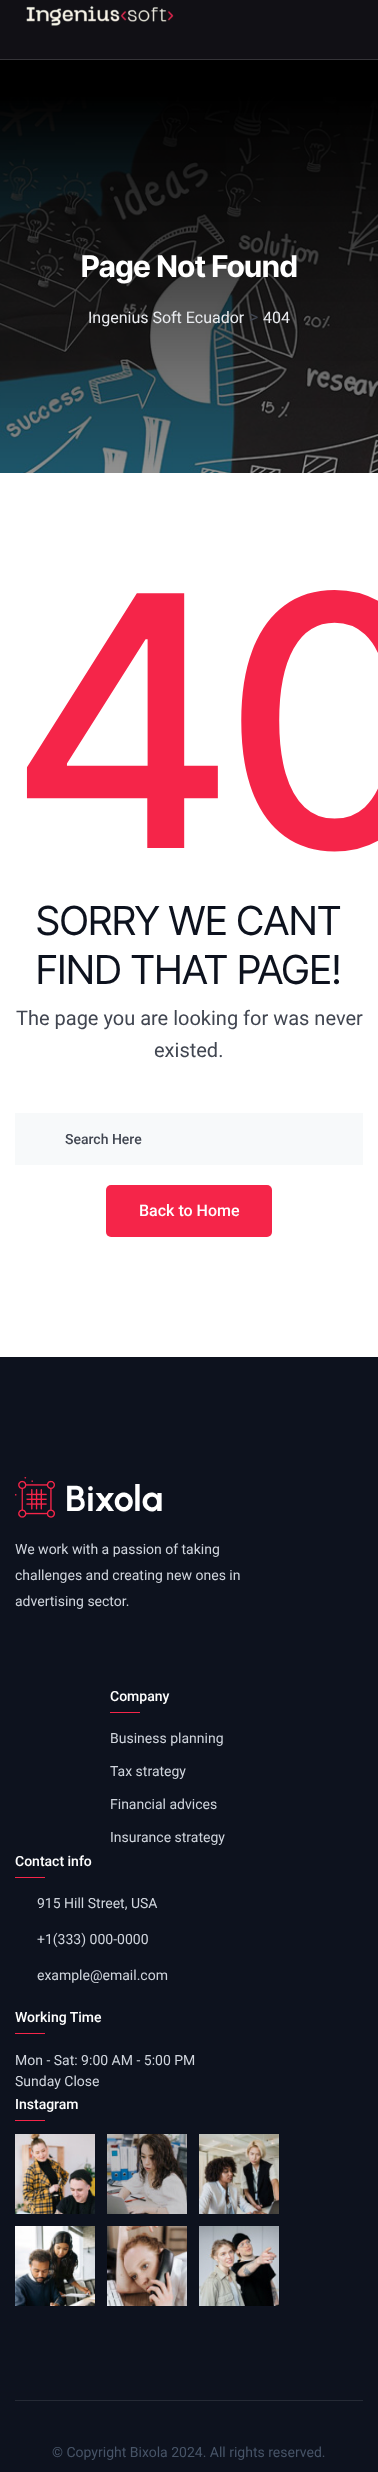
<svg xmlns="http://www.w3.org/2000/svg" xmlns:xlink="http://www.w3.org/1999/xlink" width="378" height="2472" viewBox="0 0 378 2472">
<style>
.cls-1{font:bold 30px Inter Tight;fill:#ffffff}
.cls-2{font:16px Roboto;fill:#eaecf0}
.cls-3{font:18px Roboto;fill:#414651}
.cls-4{font:500 350px Inter Tight;fill:#f52549}
.cls-5{font:40px Inter Tight;fill:#0d121e}
.cls-6{font:20px Roboto;fill:#414651}
.cls-7{font:500 14px Roboto;fill:#414651}
.cls-8{font:500 16px Roboto;fill:#ffffff}
.cls-9{font:14px Roboto;fill:#d0d5dd}
.cls-10{font:500 14px Roboto;fill:#ffffff}
.cls-11{font:14px Roboto;fill:#475467}
</style>
<rect width="100%" height="100%" fill="#ffffff"/>
<rect fill="#111015" x="0" y="0" width="378" height="59"/>
<rect fill="#353438" x="0" y="59" width="378" height="1"/>
<image xlink:href="image0.png" x="26" y="5" width="148" height="21"/>
<image xlink:href="image1.png" x="0" y="60" width="378" height="413"/>
<rect fill="#f7f9fa" x="15" y="1113" width="348" height="52"/>
<rect fill="#f52549" x="106" y="1185" width="166" height="52" rx="5"/>
<rect fill="#0d121e" x="0" y="1357" width="378" height="1115"/>
<rect fill="#252a35" x="15" y="2400" width="348" height="1"/>
<image xlink:href="image2.png" x="15" y="1477" width="147" height="41"/>
<rect fill="#f52549" x="110" y="1712" width="30" height="1"/>
<rect fill="#f52549" x="15" y="1877" width="30" height="1"/>
<rect fill="#f52549" x="15" y="2033" width="30" height="1"/>
<rect fill="#f52549" x="15" y="2120" width="30" height="1"/>
<image xlink:href="image3.png" x="15" y="2134" width="80" height="80"/>
<image xlink:href="image4.png" x="107" y="2134" width="80" height="80"/>
<image xlink:href="image5.png" x="199" y="2134" width="80" height="80"/>
<image xlink:href="image6.png" x="15" y="2226" width="80" height="80"/>
<image xlink:href="image7.png" x="107" y="2226" width="80" height="80"/>
<image xlink:href="image8.png" x="199" y="2226" width="80" height="80"/>
<text class="cls-1" x="81" y="277">Page Not Found</text>
<text class="cls-2" x="88" y="323">Ingenius Soft Ecuador</text>
<text class="cls-3" x="249" y="323">&gt;</text>
<text class="cls-2" x="263" y="323">404</text>
<text class="cls-4" x="15" y="848">40</text>
<text class="cls-5"><tspan x="36" y="935">SORRY WE CANT</tspan><tspan x="36" y="984">FIND THAT PAGE!</tspan></text>
<text class="cls-6" x="16" y="1025">The page you are looking for was never</text>
<text class="cls-6" x="154" y="1057">existed.</text>
<text class="cls-7" x="65" y="1144">Search Here</text>
<text class="cls-8" x="139" y="1216">Back to Home</text>
<text class="cls-9"><tspan x="15" y="1554">We work with a passion of taking</tspan><tspan x="15" y="1580">challenges and creating new ones in</tspan><tspan x="15" y="1606">advertising sector.</tspan></text>
<text class="cls-10" x="110" y="1701">Company</text>
<text class="cls-9" x="110" y="1743">Business planning</text>
<text class="cls-9" x="110" y="1776">Tax strategy</text>
<text class="cls-9" x="110" y="1809">Financial advices</text>
<text class="cls-9" x="110" y="1842">Insurance strategy</text>
<text class="cls-10" x="15" y="1866">Contact info</text>
<text class="cls-9" x="37" y="1908">915 Hill Street, USA</text>
<text class="cls-9" x="37" y="1944">+1(333) 000-0000</text>
<text class="cls-9" x="37" y="1980">example@email.com</text>
<text class="cls-10" x="15" y="2022">Working Time</text>
<text class="cls-9"><tspan x="15" y="2065">Mon - Sat: 9:00 AM - 5:00 PM</tspan><tspan x="15" y="2086">Sunday Close</tspan></text>
<text class="cls-10" x="15" y="2109">Instagram</text>
<text class="cls-11" x="52" y="2457">© Copyright Bixola 2024. All rights reserved.</text>
</svg>
